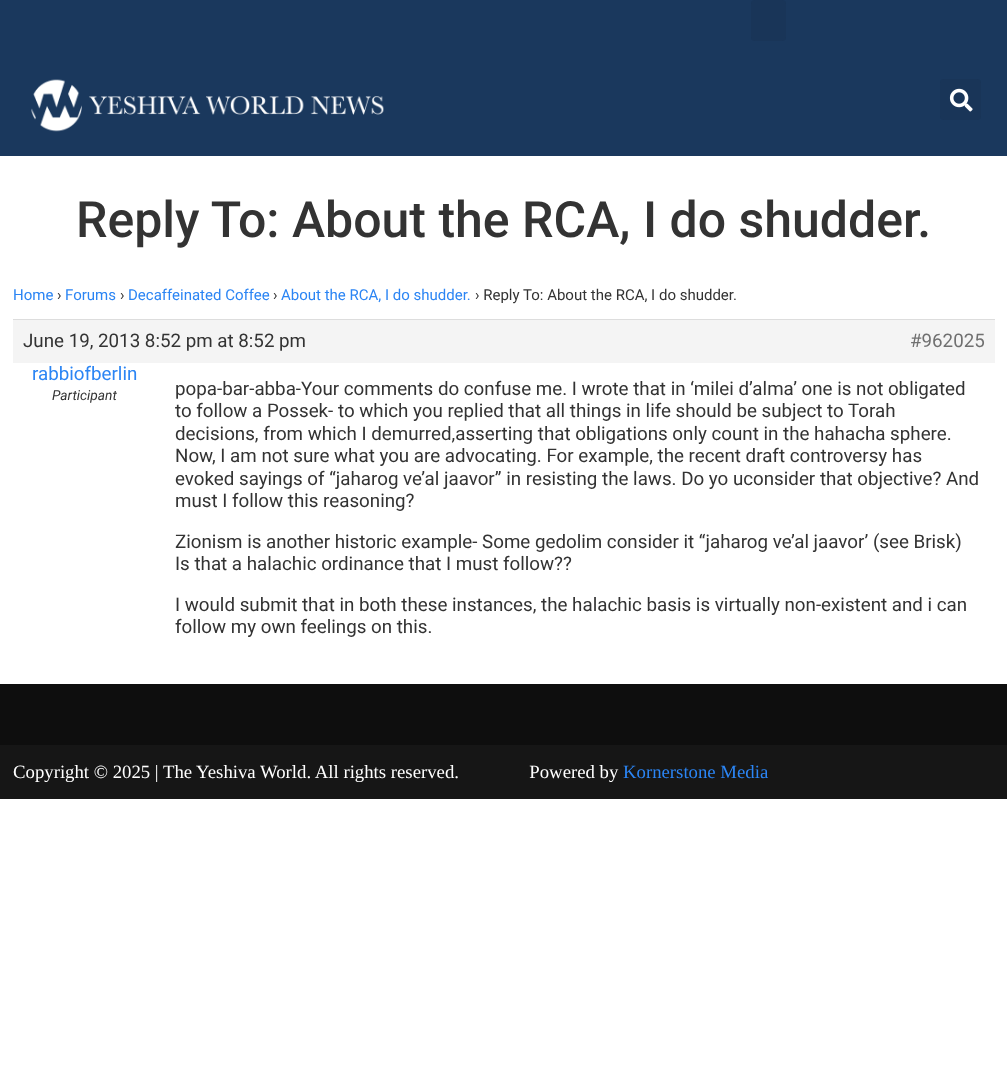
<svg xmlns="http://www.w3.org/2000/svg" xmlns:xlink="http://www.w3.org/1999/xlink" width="1007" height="1079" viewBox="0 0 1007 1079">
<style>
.cls-1{font:500 50px Roboto;fill:#333333}
.cls-2{font:15px Roboto;fill:#2b85f4}
.cls-3{font:15px Roboto;fill:#333333}
.cls-4{font:18.75px Roboto;fill:#333333}
.cls-5{font:18.75px Roboto;fill:#707070}
.cls-6{font:18.75px Roboto;fill:#2b85f4}
.cls-7{font:italic 13.75px Roboto;fill:#333333}
.cls-8{font:18.75px Liberation Serif;fill:#ffffff}
.cls-9{font:18.75px Liberation Serif;fill:#2b85f4}
</style>
<rect width="100%" height="100%" fill="#ffffff"/>
<rect fill="#1a385d" x="0" y="0" width="1007" height="156"/>
<rect fill="#193558" x="751" y="0" width="35" height="41" rx="4"/>
<image xlink:href="image0.png" x="31" y="79" width="353" height="53"/>
<rect fill="#193558" x="940" y="79" width="41" height="41" rx="4"/>
<image xlink:href="image1.png" x="949" y="88" width="24" height="24"/>
<rect fill="#f4f4f4" x="13" y="320" width="982" height="43"/>
<rect fill="#dddddd" x="13" y="319" width="982" height="1"/>
<rect fill="#0e0e0e" x="0" y="684" width="1007" height="61"/>
<rect fill="#161616" x="0" y="745" width="1007" height="54"/>
<text class="cls-1" x="76" y="237">Reply To: About the RCA, I do shudder.</text>
<text class="cls-2" x="13" y="300">Home</text>
<text class="cls-3" x="57" y="300">›</text>
<text class="cls-2" x="65" y="300">Forums</text>
<text class="cls-3" x="120" y="300">›</text>
<text class="cls-2" x="128" y="300">Decaffeinated Coffee</text>
<text class="cls-3" x="273" y="300">›</text>
<text class="cls-2" x="281" y="300">About the RCA, I do shudder.</text>
<text class="cls-3" x="475" y="300">› Reply To: About the RCA, I do shudder.</text>
<text class="cls-4" x="23" y="347">June 19, 2013 8:52 pm at 8:52 pm</text>
<text class="cls-5" x="910" y="347">#962025</text>
<text class="cls-6" x="32" y="380">rabbiofberlin</text>
<text class="cls-7" x="52" y="400">Participant</text>
<text class="cls-4"><tspan x="175" y="395">popa-bar-abba-Your comments do confuse me. I wrote that in ‘milei d’alma’ one is not obligated</tspan><tspan x="175" y="417">to follow a Possek- to which you replied that all things in life should be subject to Torah</tspan><tspan x="175" y="440">decisions, from which I demurred,asserting that obligations only count in the hahacha sphere.</tspan><tspan x="175" y="462">Now, I am not sure what you are advocating. For example, the recent draft controversy has</tspan><tspan x="175" y="485">evoked sayings of “jaharog ve’al jaavor” in resisting the laws. Do yo uconsider that objective? And</tspan><tspan x="175" y="507">must I follow this reasoning?</tspan></text>
<text class="cls-4"><tspan x="175" y="548">Zionism is another historic example- Some gedolim consider it “jaharog ve’al jaavor’ (see Brisk)</tspan><tspan x="175" y="570">Is that a halachic ordinance that I must follow??</tspan></text>
<text class="cls-4"><tspan x="175" y="611">I would submit that in both these instances, the halachic basis is virtually non-existent and i can</tspan><tspan x="175" y="633">follow my own feelings on this.</tspan></text>
<text class="cls-8" xml:space="preserve" x="13" y="778">Copyright © 2025 | The Yeshiva World. All rights reserved.               Powered by</text>
<text class="cls-9" x="623" y="778">Kornerstone Media</text>
</svg>
